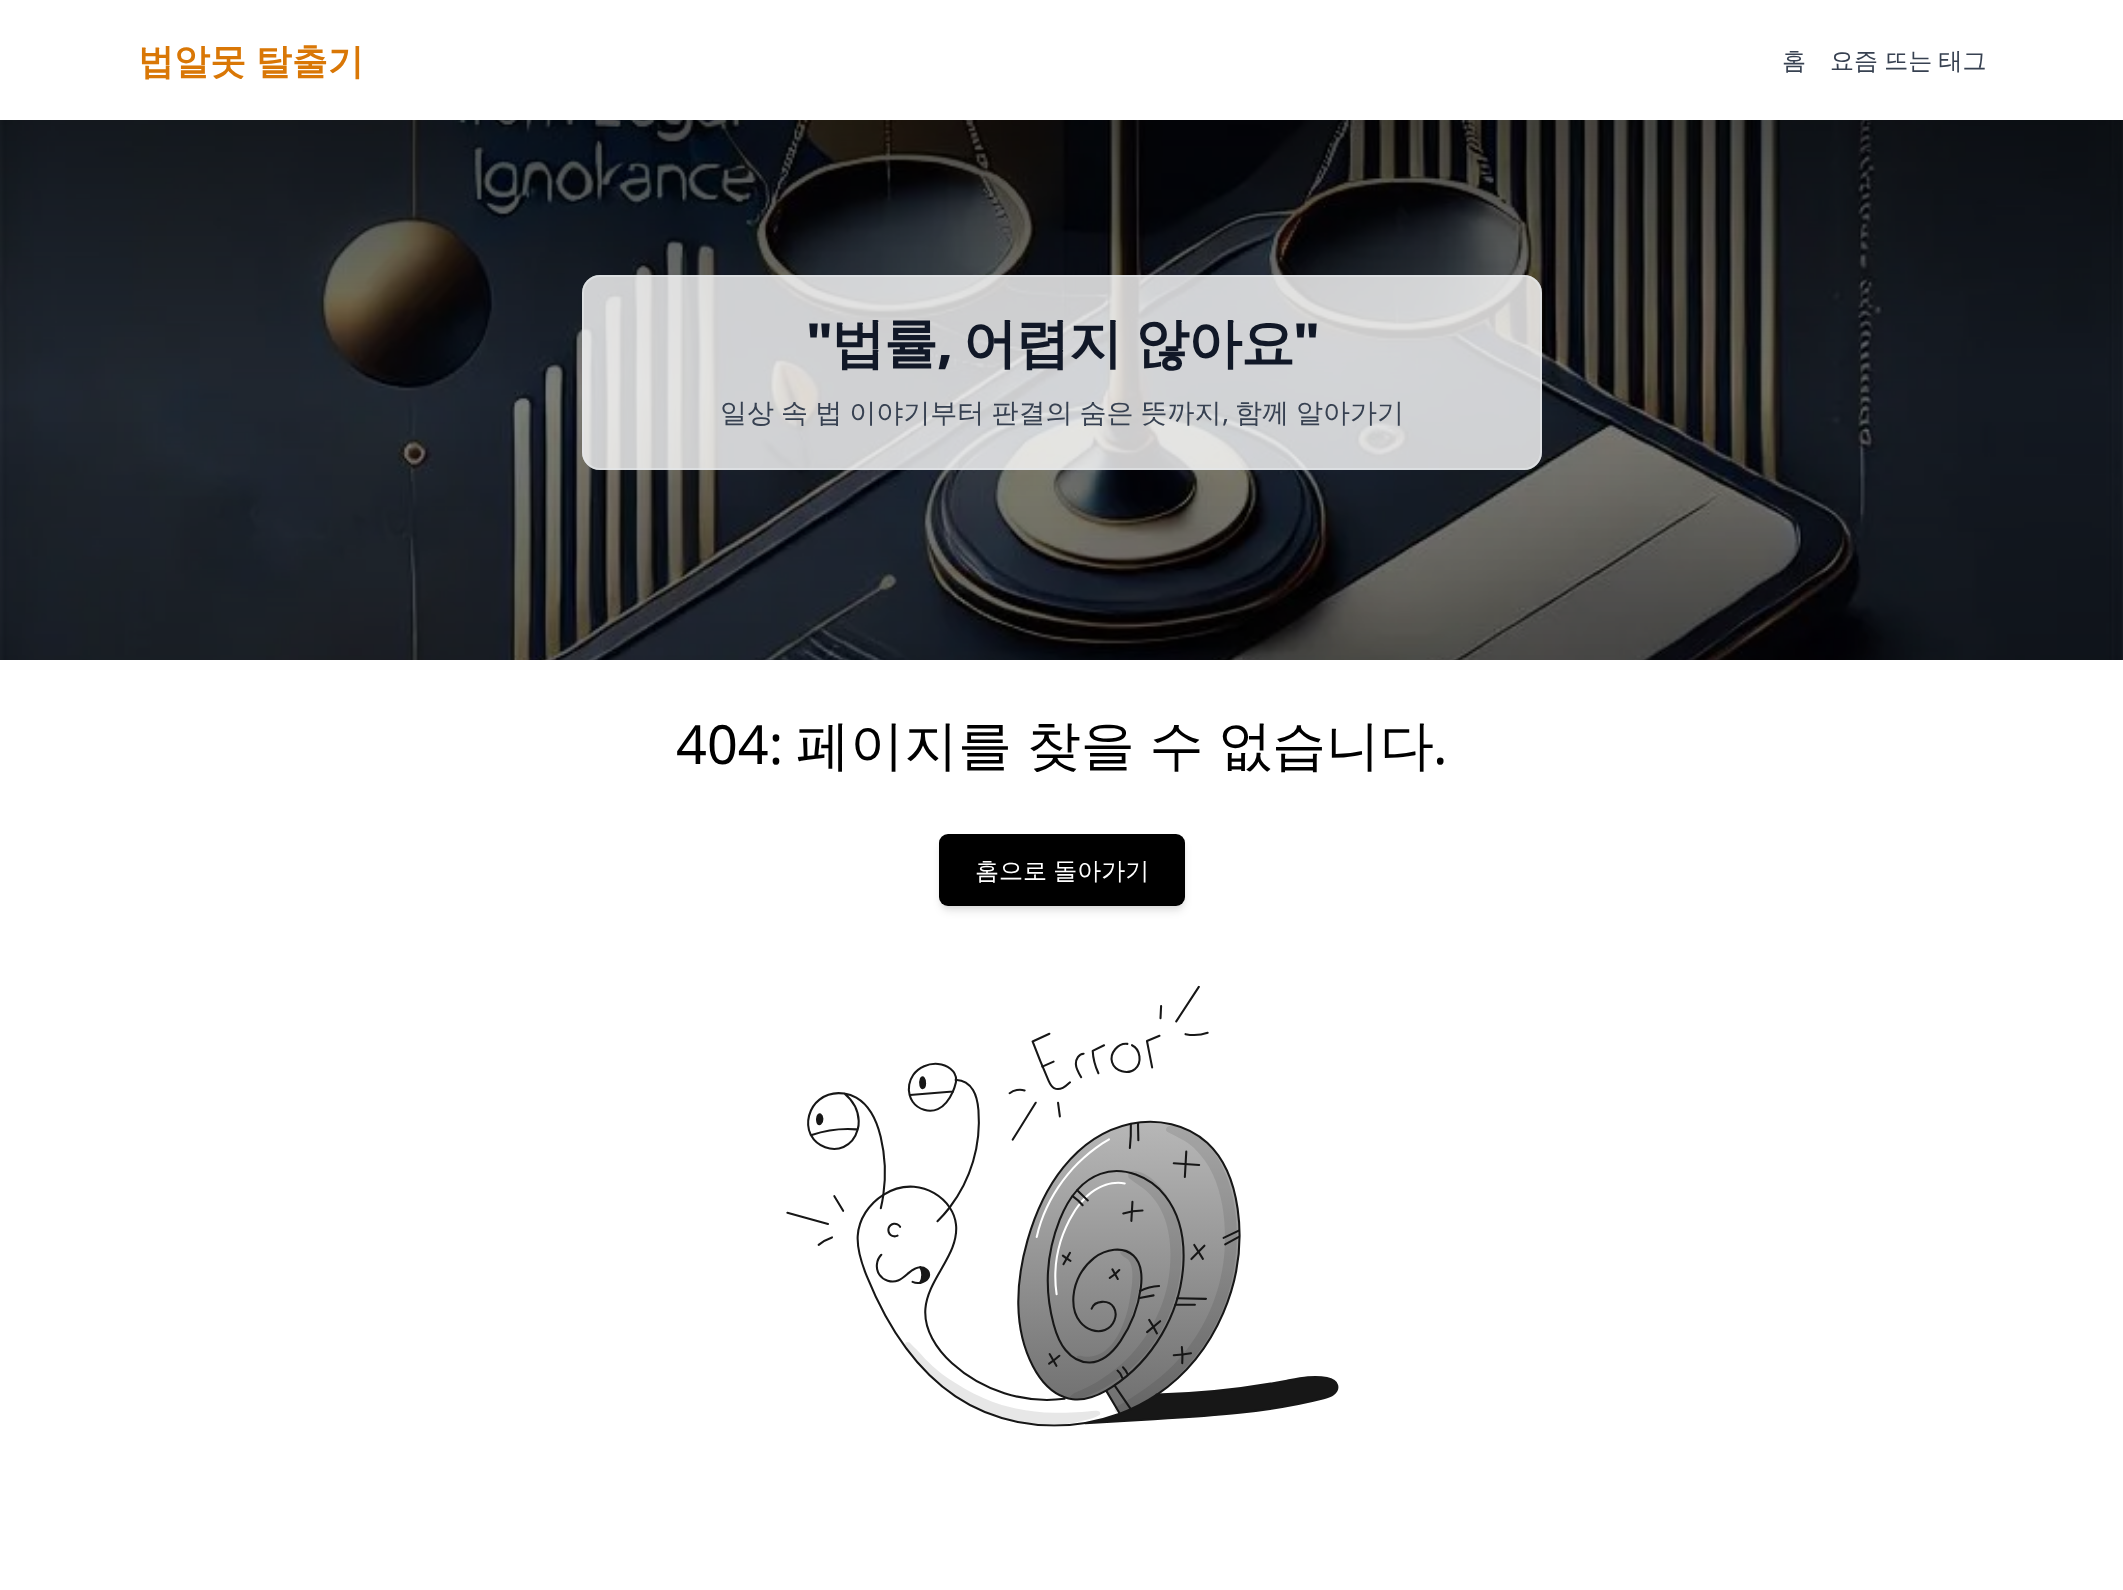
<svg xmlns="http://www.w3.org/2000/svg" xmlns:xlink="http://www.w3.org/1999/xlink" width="2123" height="1590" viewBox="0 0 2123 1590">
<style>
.cls-1{font:bold 36px WenQuanYi Zen Hei;fill:#d97706}
.cls-2{font:500 24px WenQuanYi Zen Hei;fill:#374151}
.cls-3{font:800 54px Noto Sans;letter-spacing:-1.25px;fill:#111827}
.cls-4{font:bold 54px WenQuanYi Zen Hei;letter-spacing:-1.25px;fill:#111827}
.cls-5{font:500 27px WenQuanYi Zen Hei;fill:#374151}
.cls-6{font:27px Noto Sans;fill:#374151}
.cls-7{font:54px Noto Sans;fill:#000000}
.cls-8{font:500 54px WenQuanYi Zen Hei;fill:#000000}
.cls-9{font:500 24px WenQuanYi Zen Hei;fill:#ffffff}
</style>
<rect width="100%" height="100%" fill="#ffffff"/>
<image xlink:href="image0.png" x="0" y="120" width="2123" height="540"/>
<rect fill="#ffffff" fill-opacity="0.8" x="582" y="275" width="960" height="195" rx="18"/>
<rect fill="none" stroke="#e5e7eb" stroke-opacity="0.6" stroke-width="2" x="583" y="276" width="958" height="193" rx="17"/>
<rect fill="#000000" fill-opacity="0.1" filter="blur(3px)" x="942" y="840" width="240" height="66" rx="6"/>
<rect fill="#000000" fill-opacity="0.1" filter="blur(4.5px)" x="941" y="842" width="243" height="69" rx="8"/>
<rect fill="#000000" x="939" y="834" width="246" height="72" rx="9"/>
<image xlink:href="image1.png" x="786" y="985" width="553" height="442"/>
<text class="cls-1" x="138" y="74" word-spacing="-1">법알못 탈출기</text>
<text class="cls-2" x="1782" y="69">홈</text>
<text class="cls-2" x="1830" y="69" word-spacing="-1">요즘 뜨는 태그</text>
<text class="cls-3" x="806" y="362">"</text>
<text class="cls-4" x="831" y="362">법률</text>
<text class="cls-4" x="963" y="362" word-spacing="-1">어렵지 않아요</text>
<text class="cls-3" x="1293" y="362">"</text>
<text class="cls-3" x="937" y="362">,</text>
<text class="cls-5" x="720" y="422" word-spacing="-1">일상 속 법 이야기부터 판결의 숨은 뜻까지</text>
<text class="cls-6" x="1222" y="422">,</text>
<text class="cls-5" x="1235" y="422" word-spacing="-1">함께 알아가기</text>
<text class="cls-7" x="676" y="764">404:</text>
<text class="cls-8" x="796" y="764" word-spacing="-1.5">페이지를 찾을 수 없습니다</text>
<text class="cls-7" x="1433" y="764">.</text>
<text class="cls-9" x="975" y="879" word-spacing="-1">홈으로 돌아가기</text>
</svg>
